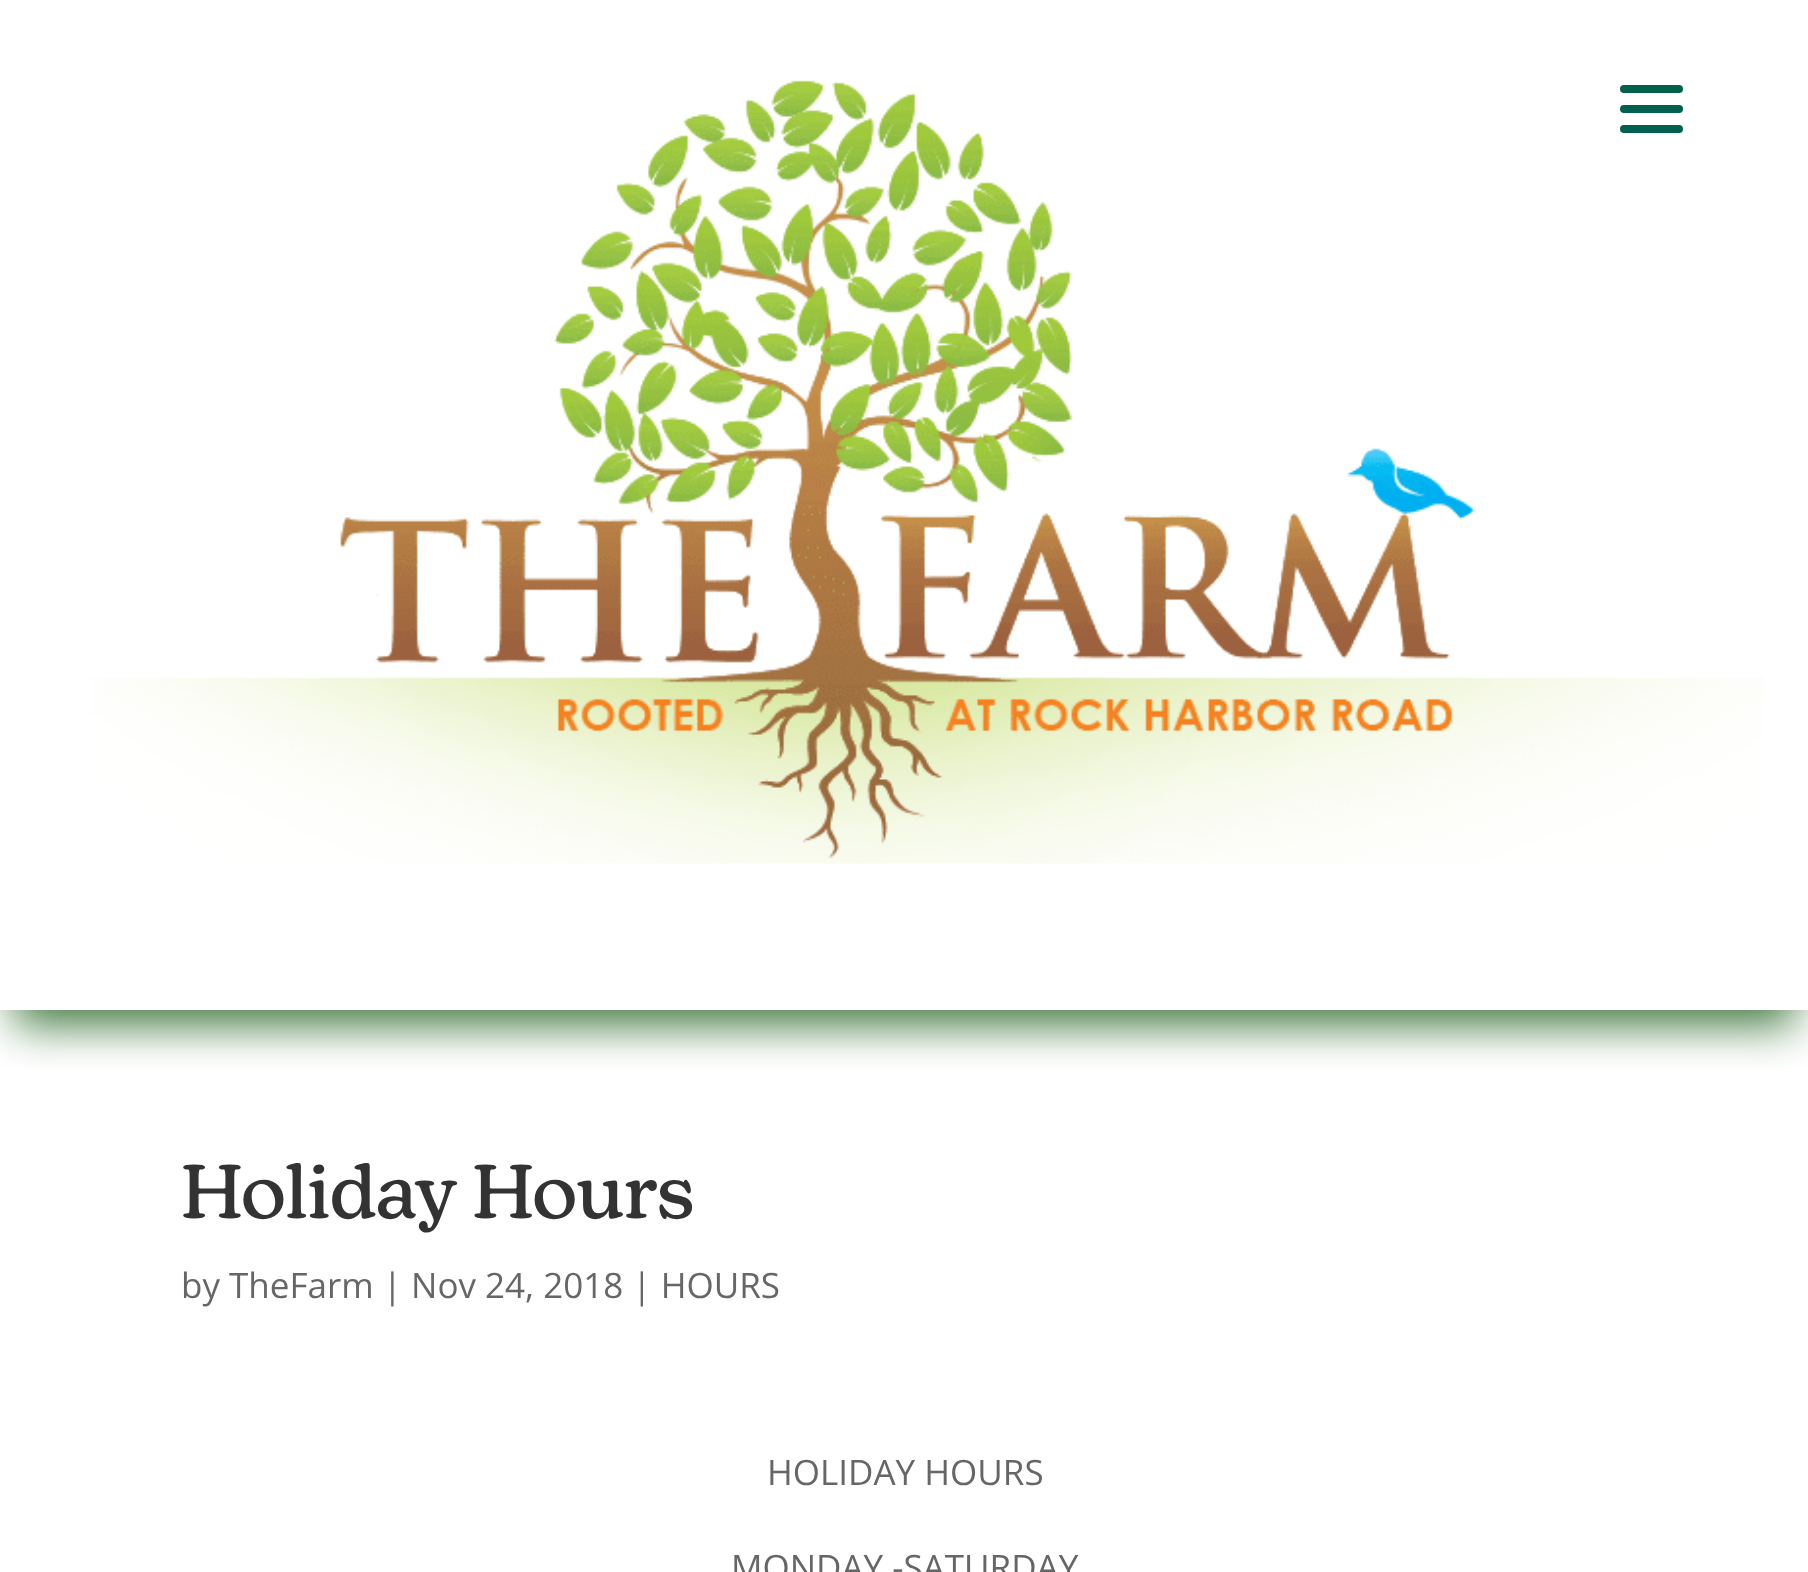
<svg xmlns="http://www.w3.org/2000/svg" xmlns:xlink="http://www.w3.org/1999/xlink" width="1808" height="1572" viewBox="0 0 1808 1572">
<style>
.cls-1{font:500 75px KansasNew;fill:#333333}
.cls-2{font:35px Open Sans;fill:#666666}
</style>
<defs>
<clipPath id="clip1"><rect x="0" y="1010" width="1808" height="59"/></clipPath>
</defs>
<rect width="100%" height="100%" fill="#ffffff"/>
<g clip-path="url(#clip1)">
<rect fill="#024c00" fill-opacity="0.76" filter="blur(22.5px)" x="15" y="45" width="1780" height="980"/>
</g>
<image xlink:href="image0.png" x="90" y="80" width="1675" height="784"/>
<rect fill="#02614d" x="1620" y="105" width="63" height="8" rx="4"/>
<rect fill="#02614d" x="1620" y="85" width="63" height="8" rx="4"/>
<rect fill="#02614d" x="1620" y="125" width="63" height="8" rx="4"/>
<text class="cls-1" x="181" y="1218">Holiday Hours</text>
<text class="cls-2" x="181" y="1298">by TheFarm | Nov 24, 2018 | HOURS</text>
<text class="cls-2" x="767" y="1485">HOLIDAY HOURS</text>
<text class="cls-2" x="731" y="1580">MONDAY -SATURDAY</text>
</svg>
